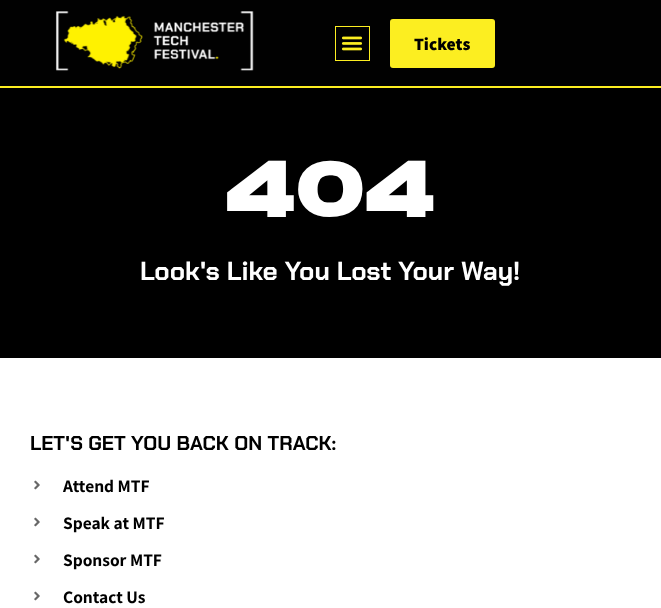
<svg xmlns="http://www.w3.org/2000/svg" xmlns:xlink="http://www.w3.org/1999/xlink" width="661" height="608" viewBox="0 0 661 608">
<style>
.cls-1{font:800 17.5px Assistant;fill:#000000}
.cls-2{font:bold 80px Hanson;fill:#ffffff}
.cls-3{font:bold 26px Chakra Petch;fill:#ffffff}
.cls-4{font:bold 20px Chakra Petch;fill:#000000}
.cls-5{font:bold 17.5px Assistant;fill:#000000}
</style>
<rect width="100%" height="100%" fill="#ffffff"/>
<rect fill="#010101" x="0" y="0" width="661" height="86"/>
<rect fill="#fcee21" x="0" y="86" width="661" height="2"/>
<image xlink:href="image0.png" x="55" y="11" width="199" height="60"/>
<rect fill="none" stroke="#fcee21" x="335.5" y="26.5" width="34" height="34"/>
<image xlink:href="image1.png" x="341" y="36" width="22" height="15"/>
<rect fill="#fcee21" x="390" y="19" width="105" height="49" rx="3"/>
<rect fill="#000000" x="0" y="88" width="661" height="270"/>
<image xlink:href="image2.png" x="34" y="480" width="6" height="10"/>
<image xlink:href="image2.png" x="34" y="517" width="6" height="10"/>
<image xlink:href="image2.png" x="34" y="554" width="6" height="10"/>
<image xlink:href="image2.png" x="34" y="591" width="6" height="10"/>
<text class="cls-1" x="414" y="50">Tickets</text>
<text class="cls-2" x="225" y="217">404</text>
<text class="cls-3" x="140" y="280">Look's Like You Lost Your Way!</text>
<text class="cls-4" x="30" y="450">LET'S GET YOU BACK ON TRACK:</text>
<text class="cls-5" x="63" y="492">Attend MTF</text>
<text class="cls-5" x="63" y="529">Speak at MTF</text>
<text class="cls-5" x="63" y="566">Sponsor MTF</text>
<text class="cls-5" x="63" y="603">Contact Us</text>
</svg>
